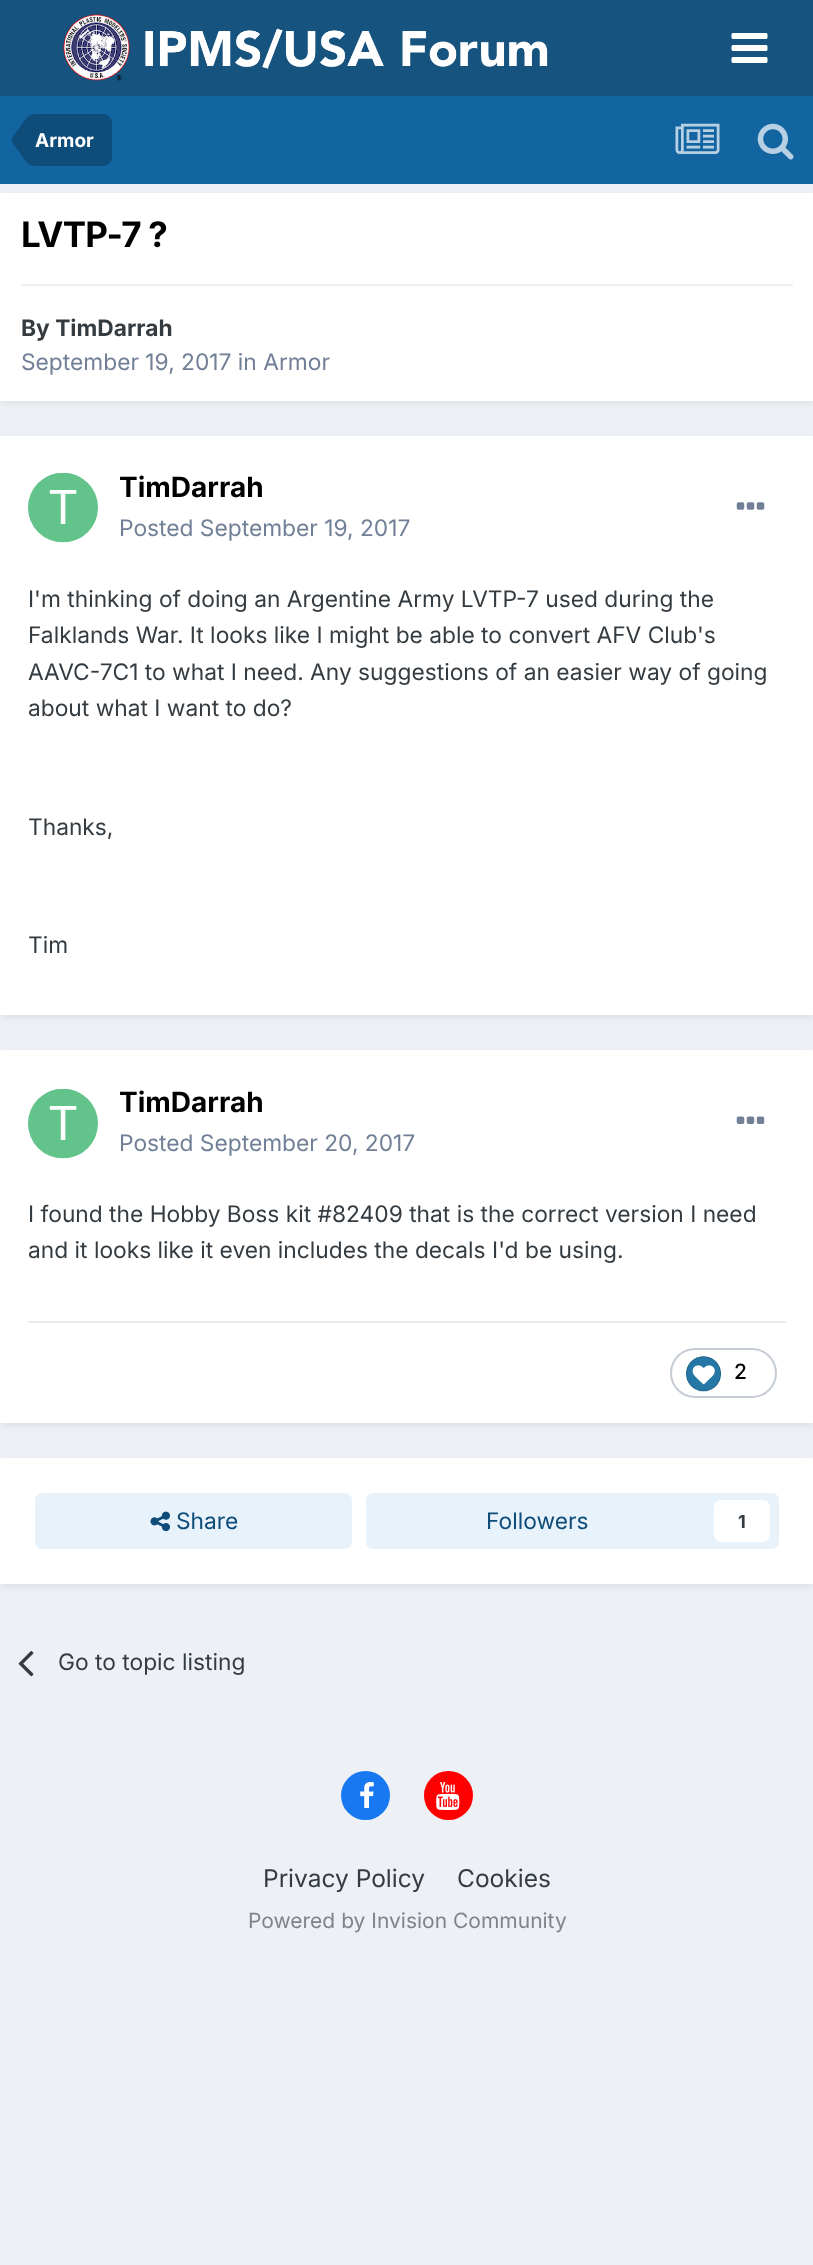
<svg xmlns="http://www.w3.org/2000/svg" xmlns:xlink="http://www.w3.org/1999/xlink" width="813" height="2265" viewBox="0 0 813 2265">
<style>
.cls-1{font:bold 19px Inter;fill:#ffffff}
.cls-2{font:bold 35px Inter;letter-spacing:-0.75px;fill:#000000}
.cls-3{font:bold 22.75px Inter;fill:#353c41}
.cls-4{font:22.75px Inter;fill:#718096}
.cls-5{font:bold 28px Inter;fill:#000000}
.cls-6{font:22.75px Inter;fill:#353c41}
.cls-7{font:500 21px Inter;fill:#000000}
.cls-8{font:22.75px Inter;fill:#0e4c79}
.cls-9{font:bold 18px Inter;fill:#353c41}
.cls-10{font:24.5px Inter;fill:#353c41}
.cls-11{font:21px Inter;fill:#7f8489}
</style>
<rect width="100%" height="100%" fill="#edf0f4"/>
<rect fill="#16537e" x="0" y="0" width="813" height="96"/>
<image xlink:href="image0.png" x="63" y="14" width="485" height="67"/>
<image xlink:href="image1.png" x="731" y="33" width="37" height="30"/>
<rect fill="#1265a1" x="0" y="96" width="813" height="88"/>
<path fill="#0e4c79" d="M35 114H103C108 114 112 118 112 123V157C112 162 108 166 103 166H35Z"/>
<path fill="#0e4c79" d="M35 140V166C31 166 27.5 164 25 160L12.5 142.5L12 140ZM35 140H12L12.5 137.5L25 120C27.5 116 31 114 35 114Z"/>
<image xlink:href="image2.png" x="675" y="123" width="45" height="31"/>
<image xlink:href="image3.png" x="757" y="123" width="37" height="37"/>
<rect fill="#2d3748" fill-opacity="0.1" filter="blur(3.5px)" x="2" y="198" width="810" height="205"/>
<rect fill="#ffffff" x="0" y="193" width="813" height="208"/>
<rect fill="#efeff0" x="21" y="284" width="772" height="2"/>
<rect fill="#2d3748" fill-opacity="0.1" filter="blur(3.5px)" x="2" y="441" width="810" height="576"/>
<rect fill="#ffffff" x="0" y="436" width="813" height="579"/>
<image xlink:href="image4.png" x="28" y="473" width="70" height="70"/>
<image xlink:href="image5.png" x="736" y="502" width="29" height="8"/>
<rect fill="#2d3748" fill-opacity="0.1" filter="blur(3.5px)" x="2" y="1055" width="810" height="370"/>
<rect fill="#ffffff" x="0" y="1050" width="813" height="373"/>
<image xlink:href="image6.png" x="28" y="1089" width="70" height="70"/>
<image xlink:href="image7.png" x="736" y="1116" width="29" height="8"/>
<rect fill="#ebecec" x="28" y="1321" width="758" height="2"/>
<rect fill="none" stroke="#c6ccd5" stroke-width="2" x="671" y="1349" width="105" height="48" rx="24"/>
<image xlink:href="image8.png" x="686" y="1356" width="35" height="36"/>
<rect fill="#2d3748" fill-opacity="0.1" filter="blur(3.5px)" x="2" y="1463" width="810" height="123"/>
<rect fill="#ffffff" x="0" y="1458" width="813" height="126"/>
<rect fill="#e8f2fa" x="35" y="1493" width="317" height="56" rx="7"/>
<image xlink:href="image9.png" x="150" y="1511" width="20" height="21"/>
<rect fill="#e8f2fa" x="366" y="1493" width="413" height="56" rx="7"/>
<rect fill="#ffffff" x="714" y="1500" width="56" height="42" rx="7"/>
<image xlink:href="image10.png" x="18" y="1651" width="16" height="26"/>
<circle fill="#1778f2" cx="365.5" cy="1795.5" r="24.5"/>
<image xlink:href="image11.png" x="360" y="1782" width="14" height="26"/>
<circle fill="#ff0000" cx="448.5" cy="1795.5" r="24.5"/>
<image xlink:href="image12.png" x="436" y="1782" width="24" height="28"/>
<text class="cls-1" x="35" y="147">Armor</text>
<text class="cls-2" x="21" y="247">LVTP-7 ?</text>
<text class="cls-3" x="21" y="336">By TimDarrah</text>
<text class="cls-4" x="21" y="370">September 19, 2017 in Armor</text>
<text class="cls-5" x="119" y="497">TimDarrah</text>
<text class="cls-4" x="119" y="536">Posted September 19, 2017</text>
<text class="cls-6"><tspan x="28" y="607">I'm thinking of doing an Argentine Army LVTP-7 used during the</tspan><tspan x="28" y="643">Falklands War. It looks like I might be able to convert AFV Club's</tspan><tspan x="28" y="680">AAVC-7C1 to what I need. Any suggestions of an easier way of going</tspan><tspan x="28" y="716">about what I want to do?</tspan></text>
<text class="cls-6" x="28" y="835">Thanks,</text>
<text class="cls-6" x="28" y="953">Tim</text>
<text class="cls-5" x="119" y="1112">TimDarrah</text>
<text class="cls-4" x="119" y="1151">Posted September 20, 2017</text>
<text class="cls-6"><tspan x="28" y="1222">I found the Hobby Boss kit #82409 that is the correct version I need</tspan><tspan x="28" y="1258">and it looks like it even includes the decals I'd be using.</tspan></text>
<text class="cls-7" x="734" y="1379">2</text>
<text class="cls-8" x="176" y="1529">Share</text>
<text class="cls-8" x="486" y="1529">Followers</text>
<text class="cls-9" x="738" y="1528">1</text>
<text class="cls-6" x="58" y="1670">Go to topic listing</text>
<text class="cls-10" x="263" y="1887">Privacy Policy</text>
<text class="cls-10" x="457" y="1887">Cookies</text>
<text class="cls-11" x="248" y="1928">Powered by Invision Community</text>
</svg>
